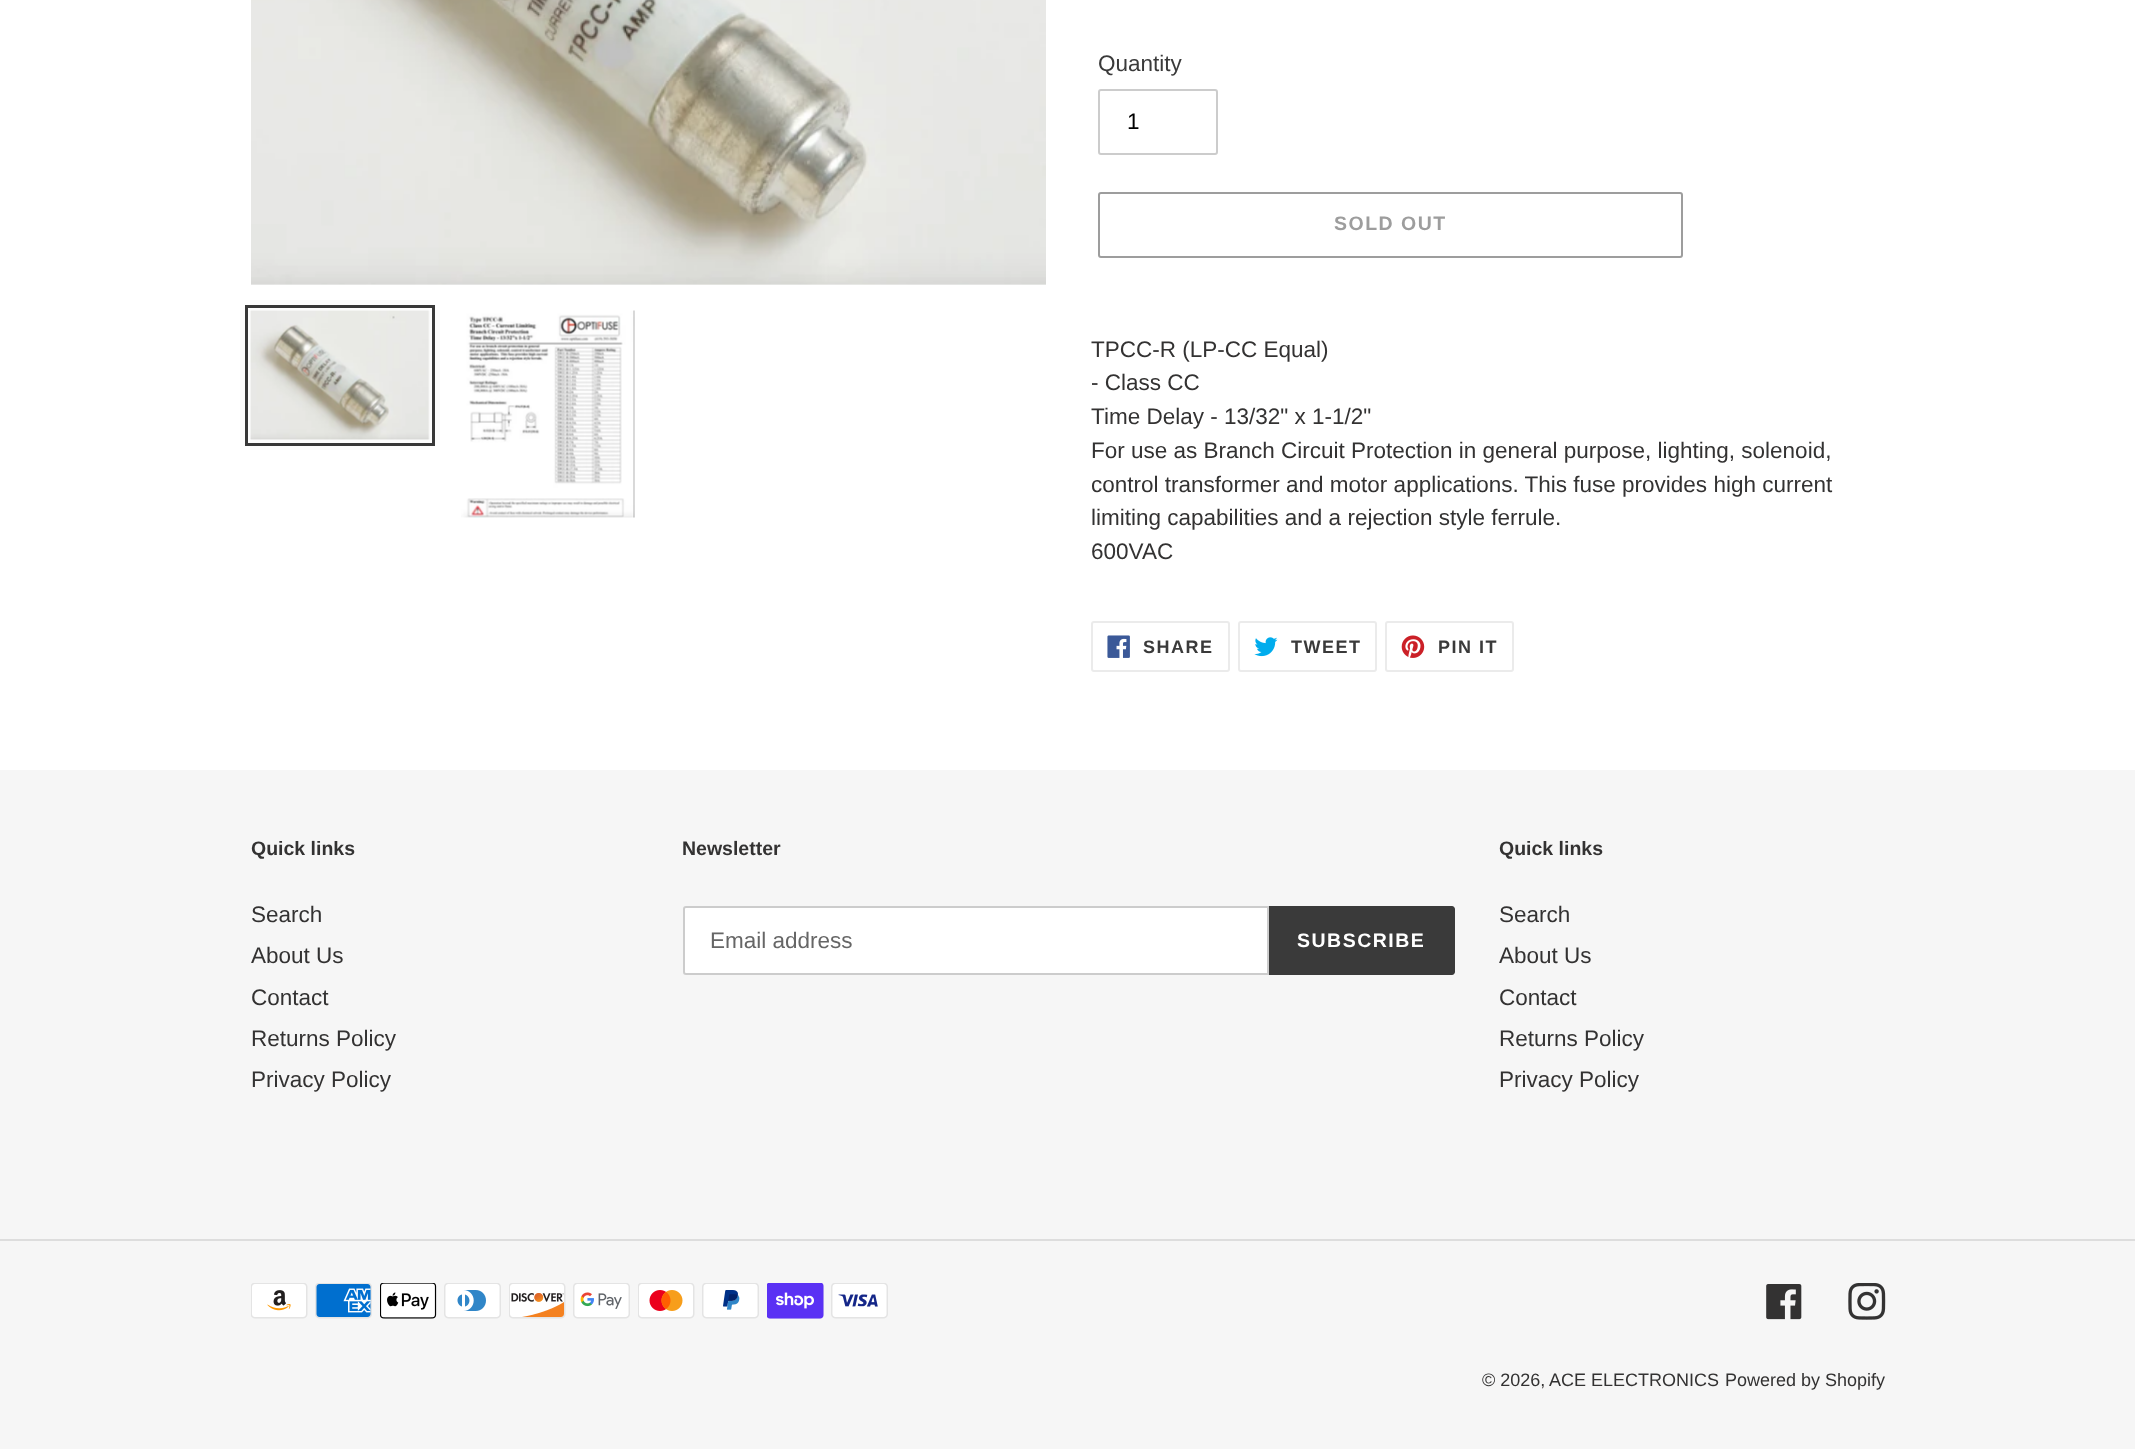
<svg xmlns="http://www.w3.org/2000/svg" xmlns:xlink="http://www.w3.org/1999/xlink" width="2135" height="1449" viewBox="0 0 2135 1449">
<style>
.cls-1{font:22.5px Liberation Sans;fill:#3a3a3a}
.cls-2{font:22.5px Liberation Sans;fill:#000000}
.cls-3{font:bold 19.5px Liberation Sans;letter-spacing:1.5px;fill:#9d9d9d}
.cls-4{font:22.5px Liberation Sans;fill:#333232}
.cls-5{font:bold 18px Liberation Sans;letter-spacing:1.5px;fill:#3a3a3a}
.cls-6{font:bold 19.5px Liberation Sans;fill:#333232}
.cls-7{font:22.5px Liberation Sans;fill:#666666}
.cls-8{font:bold 19.5px Liberation Sans;letter-spacing:1.5px;fill:#ffffff}
.cls-9{font:18px Liberation Sans;fill:#333232}
</style>
<rect width="100%" height="100%" fill="#ffffff"/>
<image xlink:href="image0.png" x="251" y="0" width="795" height="285"/>
<rect fill="none" stroke="#3a3a3a" stroke-width="3" x="246.5" y="306.5" width="187" height="138"/>
<image xlink:href="image1.png" x="250" y="310" width="180" height="130"/>
<image xlink:href="image2.png" x="461" y="310" width="174" height="208"/>
<rect fill="none" stroke="#cccccc" stroke-width="2" x="1099" y="90" width="118" height="64" rx="2"/>
<rect fill="none" stroke="#9d9d9d" stroke-width="2" x="1099" y="193" width="583" height="64" rx="2"/>
<rect fill="none" stroke="#ebebeb" stroke-width="2" x="1092" y="622" width="137" height="49" rx="2"/>
<image xlink:href="image3.png" x="1107" y="635" width="23" height="23"/>
<rect fill="none" stroke="#ebebeb" stroke-width="2" x="1239" y="622" width="137" height="49" rx="2"/>
<image xlink:href="image4.png" x="1254" y="637" width="24" height="20"/>
<rect fill="none" stroke="#ebebeb" stroke-width="2" x="1386" y="622" width="127" height="49" rx="2"/>
<image xlink:href="image5.png" x="1401" y="635" width="24" height="23"/>
<rect fill="#f6f6f6" x="0" y="770" width="2135" height="679"/>
<path fill="#ffffff" stroke="#cccccc" stroke-width="2" d="M686 907H1268V974H686C685 974 684 973 684 972V909C684 908 685 907 686 907Z"/>
<path fill="#3a3a3a" d="M1269 906H1452C1453.5 906 1455 907.5 1455 909V972C1455 973.5 1453.5 975 1452 975H1269Z"/>
<rect fill="#dddddd" x="0" y="1239" width="2135" height="2"/>
<image xlink:href="image6.png" x="251" y="1283" width="57" height="36"/>
<image xlink:href="image7.png" x="315" y="1283" width="57" height="36"/>
<image xlink:href="image8.png" x="380" y="1283" width="57" height="36"/>
<image xlink:href="image9.png" x="444" y="1283" width="57" height="36"/>
<image xlink:href="image10.png" x="509" y="1283" width="57" height="36"/>
<image xlink:href="image11.png" x="573" y="1283" width="57" height="36"/>
<image xlink:href="image12.png" x="638" y="1283" width="57" height="36"/>
<image xlink:href="image13.png" x="702" y="1283" width="57" height="36"/>
<image xlink:href="image14.png" x="767" y="1283" width="57" height="36"/>
<image xlink:href="image15.png" x="831" y="1283" width="57" height="36"/>
<image xlink:href="image16.png" x="1766" y="1284" width="36" height="36"/>
<image xlink:href="image17.png" x="1848" y="1283" width="38" height="37"/>
<text class="cls-1" x="1098" y="71">Quantity</text>
<text class="cls-2" x="1127" y="129">1</text>
<text class="cls-3" x="1334" y="230">SOLD OUT</text>
<text class="cls-4"><tspan x="1091" y="357">TPCC-R (LP-CC Equal)</tspan><tspan x="1091" y="390">- Class CC</tspan><tspan x="1091" y="424">Time Delay - 13/32" x 1-1/2"</tspan><tspan x="1091" y="458">For use as Branch Circuit Protection in general purpose, lighting, solenoid,</tspan><tspan x="1091" y="492">control transformer and motor applications. This fuse provides high current</tspan><tspan x="1091" y="525">limiting capabilities and a rejection style ferrule.</tspan><tspan x="1091" y="559">600VAC</tspan></text>
<text class="cls-5" x="1143" y="653">SHARE</text>
<text class="cls-5" x="1291" y="653">TWEET</text>
<text class="cls-5" x="1438" y="653">PIN IT</text>
<text class="cls-6" x="251" y="855">Quick links</text>
<text class="cls-4"><tspan x="251" y="922">Search</tspan><tspan x="251" y="963">About Us</tspan><tspan x="251" y="1005">Contact</tspan><tspan x="251" y="1046">Returns Policy</tspan><tspan x="251" y="1087">Privacy Policy</tspan></text>
<text class="cls-6" x="682" y="855">Newsletter</text>
<text class="cls-7" x="710" y="948">Email address</text>
<text class="cls-8" x="1297" y="947">SUBSCRIBE</text>
<text class="cls-6" x="1499" y="855">Quick links</text>
<text class="cls-4"><tspan x="1499" y="922">Search</tspan><tspan x="1499" y="963">About Us</tspan><tspan x="1499" y="1005">Contact</tspan><tspan x="1499" y="1046">Returns Policy</tspan><tspan x="1499" y="1087">Privacy Policy</tspan></text>
<text class="cls-9" x="1482" y="1386">© 2026,</text>
<text class="cls-9" x="1549" y="1386">ACE ELECTRONICS</text>
<text class="cls-9" x="1725" y="1386">Powered by Shopify</text>
</svg>
